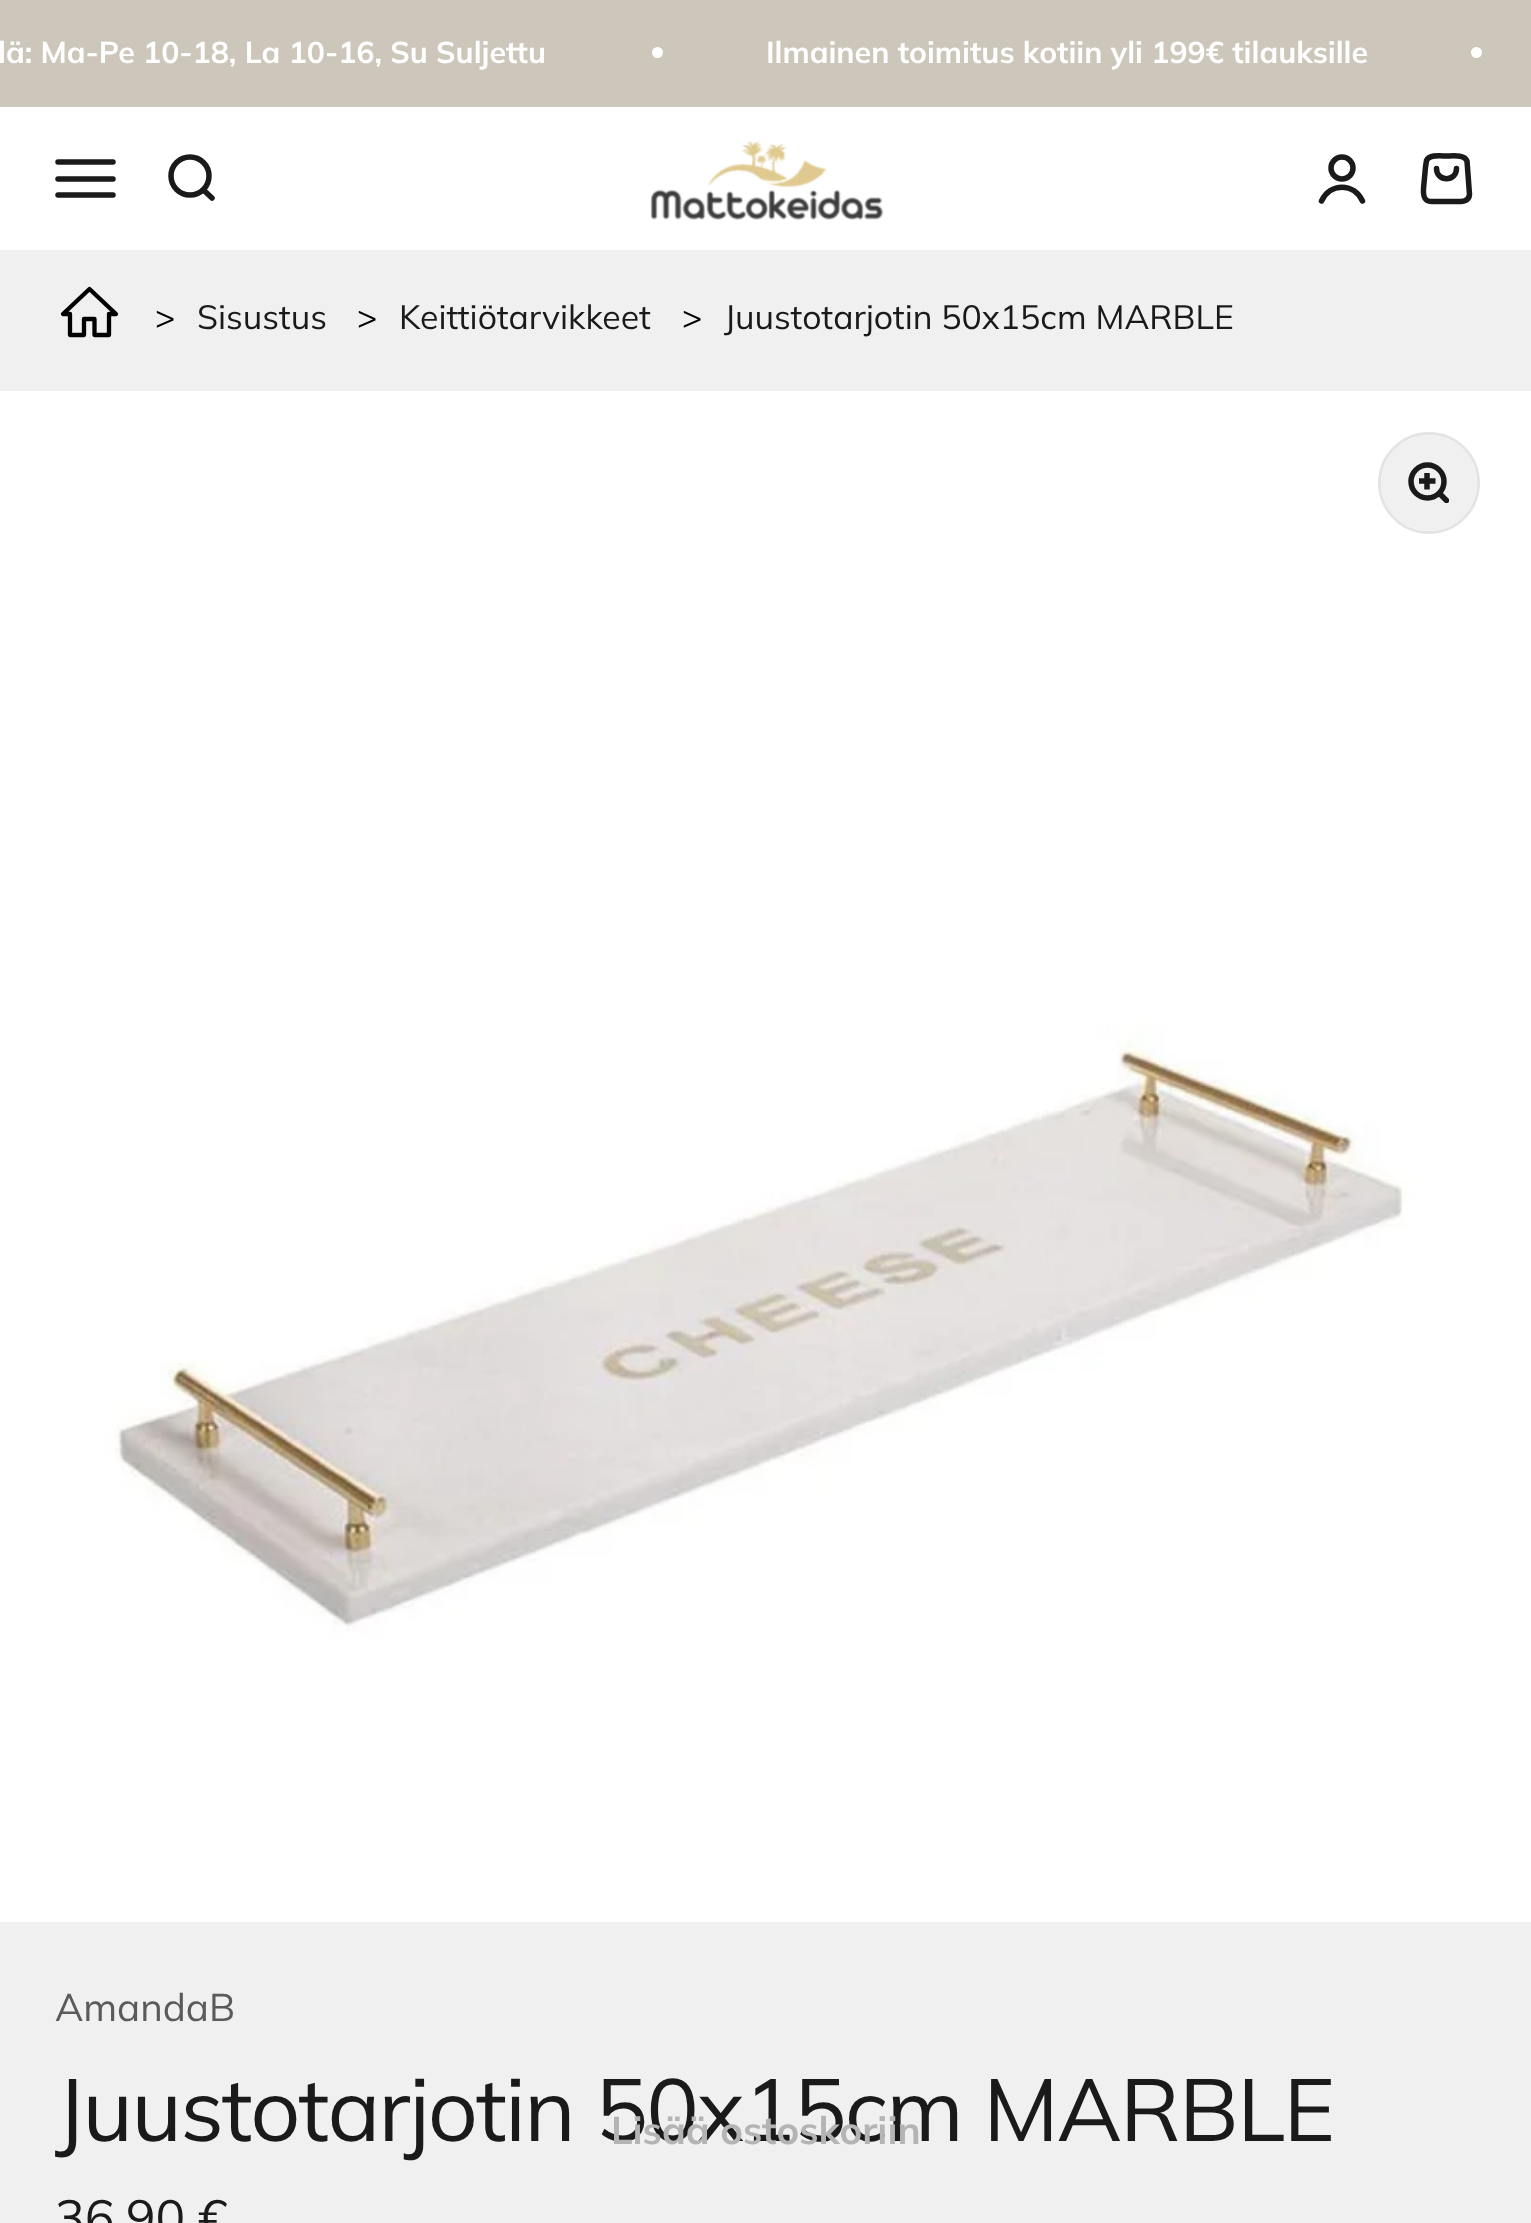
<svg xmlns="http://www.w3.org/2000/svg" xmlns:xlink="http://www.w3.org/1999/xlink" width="1531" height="2223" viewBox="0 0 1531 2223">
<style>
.cls-1{font:bold 30.25px Muli;fill:#ffffff}
.cls-2{font:33.75px Muli;fill:#000000}
.cls-3{font:33.75px Muli;fill:#1a1a1a}
.cls-4{font:38.5px Muli;fill:#5a5a5a}
.cls-5{font:88px Muli;letter-spacing:-1.75px;fill:#1a1a1a}
.cls-6{font:49.5px Muli;fill:#1a1a1a}
.cls-7{font:bold 38.5px Muli;fill:#b4b4b4}
</style>
<defs>
<clipPath id="clip1"><rect x="1408" y="462" width="41" height="41"/></clipPath>
</defs>
<rect width="100%" height="100%" fill="#f0f0f0"/>
<rect fill="#cdc7bb" x="0" y="0" width="1531" height="107"/>
<circle fill="#ffffff" cx="657.5" cy="52.5" r="5.5"/>
<circle fill="#ffffff" cx="1476.5" cy="52.5" r="5.5"/>
<rect fill="#ffffff" x="0" y="107" width="1531" height="143"/>
<path fill="none" stroke="#1a1a1a" stroke-width="5.5" stroke-linecap="round" d="M58 162H113M58 179H113M58 195H113"/>
<circle fill="none" stroke="#1a1a1a" stroke-width="5.5" cx="190" cy="176" r="19"/>
<path fill="none" stroke="#1a1a1a" stroke-width="5.5" stroke-linecap="round" stroke-linejoin="round" d="M203.5 190L212 198"/>
<image xlink:href="image0.png" x="650" y="140" width="234" height="80"/>
<circle fill="none" stroke="#1a1a1a" stroke-width="5.5" cx="1342" cy="168" r="11"/>
<path fill="none" stroke="#1a1a1a" stroke-width="5.5" stroke-linecap="round" d="M1321.5 201C1330 182.5 1354 182.5 1362.5 201"/>
<path fill="none" stroke="#1a1a1a" stroke-width="5.5" stroke-linecap="round" stroke-linejoin="round" d="M1456.5 168.5C1456.5 182 1436.5 182 1436.5 168.5M1425.5 167L1423.5 188.5C1422.5 204 1429.5 201.5 1443 201.5H1453.5C1459.5 201.5 1469 202.5 1469.5 194.5L1467 161C1464.5 154 1452 156 1446.5 156C1441.5 156 1429.5 154 1426.5 160.5Z"/>
<path fill="none" stroke="#000000" stroke-width="4.3" stroke-linecap="round" stroke-linejoin="round" d="M70 335V314H63L89.5 289L116 314H109V335H94.5V319H84V335Z"/>
<image xlink:href="image1.png" x="0" y="391" width="1531" height="1531"/>
<circle fill="none" stroke="#e4e4e4" stroke-width="3" cx="1429" cy="483" r="49.5"/>
<circle fill="#f0f0f0" cx="1429" cy="483" r="48"/>
<circle fill="none" stroke="#1a1a1a" stroke-width="5.5" cx="1427.5" cy="481.5" r="16.5"/>
<g clip-path="url(#clip1)">
<path fill="none" stroke="#1a1a1a" stroke-width="5.5" stroke-linecap="round" stroke-linejoin="round" d="M1439.5 493.5L1446.5 500.5"/>
</g>
<path fill="none" stroke="#1a1a1a" stroke-width="5.5" d="M1427 473V489.5M1419 481H1435.5"/>
<text class="cls-1" x="-2" y="63">lä: Ma-Pe 10-18, La 10-16, Su Suljettu</text>
<text class="cls-1" x="766" y="63">Ilmainen toimitus kotiin yli 199€ tilauksille</text>
<text class="cls-2" x="155" y="329">&gt;</text>
<text class="cls-3" x="197" y="329">Sisustus</text>
<text class="cls-2" x="357" y="329">&gt;</text>
<text class="cls-3" x="399" y="329">Keittiötarvikkeet</text>
<text class="cls-2" x="682" y="329">&gt;</text>
<text class="cls-3" x="724" y="329">Juustotarjotin 50x15cm MARBLE</text>
<text class="cls-4" x="55" y="2021">AmandaB</text>
<text class="cls-5" x="55" y="2141">Juustotarjotin 50x15cm MARBLE</text>
<text class="cls-6" x="55" y="2235">36,90 €</text>
<text class="cls-7" x="611" y="2144">Lisää ostoskoriin</text>
</svg>
